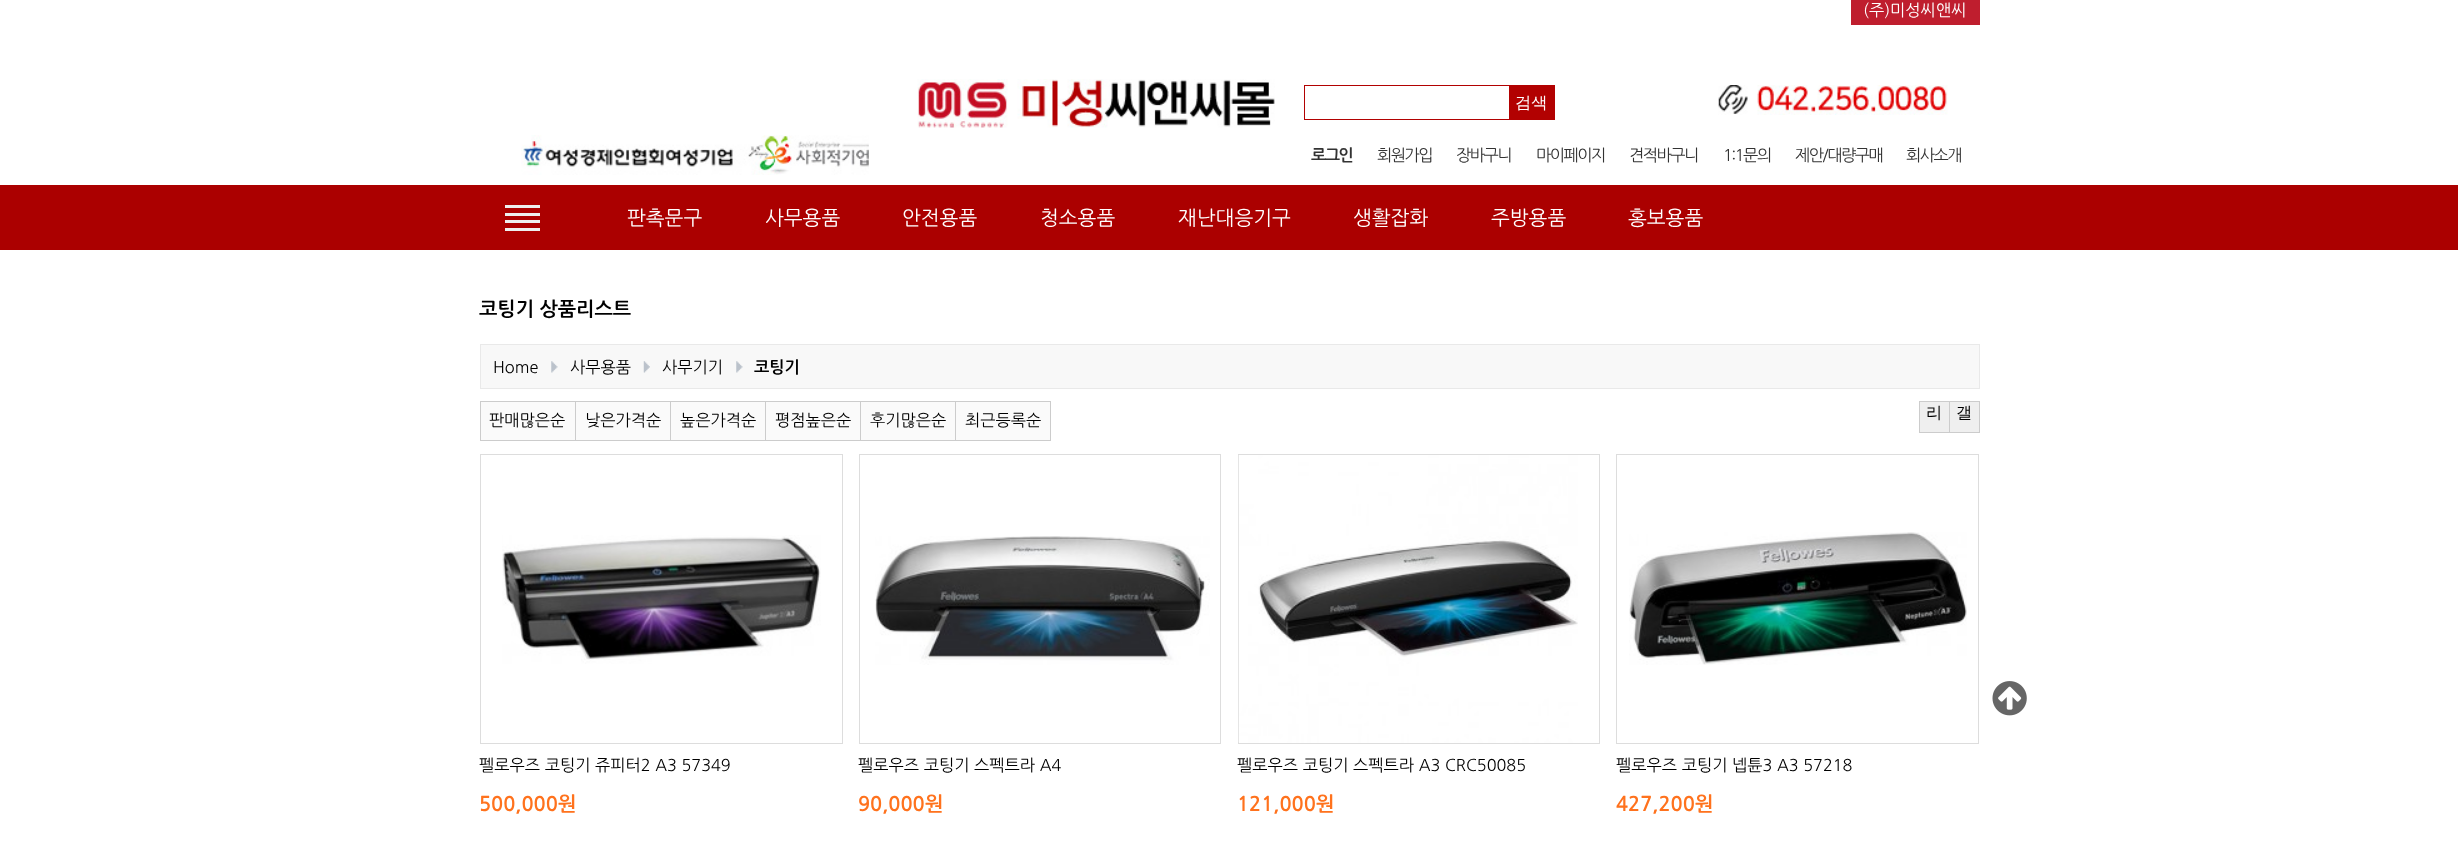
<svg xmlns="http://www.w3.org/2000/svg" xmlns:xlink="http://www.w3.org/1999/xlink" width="2458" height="848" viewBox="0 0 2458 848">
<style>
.cls-1{font:16.25px NanumGothic;fill:#ffffff}
.cls-2{font:500 16.25px WenQuanYi Zen Hei;fill:#ffffff}
.cls-3{font:bold 16.25px NanumGothic;letter-spacing:-1.5px;fill:#333333}
.cls-4{font:16.25px NanumGothic;letter-spacing:-1.5px;fill:#333333}
.cls-5{font:20px NanumGothic;fill:#ffffff}
.cls-6{font:bold 19.5px NanumGothic;fill:#000000}
.cls-7{font:16.25px NanumGothic;fill:#000000}
.cls-8{font:bold 16.25px NanumGothic;fill:#000000}
.cls-9{font:500 16.25px WenQuanYi Zen Hei;fill:#000000}
.cls-10{font:bold 20px NanumGothic;fill:#ff721d}
</style>
<rect width="100%" height="100%" fill="#ffffff"/>
<rect fill="#bf1e2e" x="1851" y="0" width="129" height="25"/>
<image xlink:href="image0.png" x="521" y="135" width="348" height="40"/>
<image xlink:href="image1.png" x="917" y="79" width="358" height="49"/>
<rect fill="none" stroke="#b20101" x="1304.5" y="85.5" width="250" height="34"/>
<rect fill="#b20101" x="1509" y="86" width="45" height="33"/>
<image xlink:href="image2.png" x="1718" y="85" width="230" height="30"/>
<image xlink:href="image3.png" x="1992" y="681" width="35" height="35"/>
<rect fill="#ab0000" x="0" y="185" width="2458" height="65"/>
<rect fill="#eeeeee" x="505" y="205" width="35" height="3"/>
<rect fill="#eeeeee" x="505" y="213" width="35" height="3"/>
<rect fill="#eeeeee" x="505" y="220" width="35" height="3"/>
<rect fill="#eeeeee" x="505" y="228" width="35" height="3"/>
<rect fill="#f8f8f8" stroke="#e9e9e9" x="480.5" y="344.5" width="1499" height="44"/>
<image xlink:href="image4.png" x="551" y="361" width="7" height="12"/>
<image xlink:href="image5.png" x="643" y="361" width="7" height="12"/>
<image xlink:href="image4.png" x="736" y="361" width="7" height="12"/>
<rect fill="#fafafa" stroke="#cccccc" x="480.5" y="401.5" width="95" height="39"/>
<rect fill="#fafafa" stroke="#cccccc" x="575.5" y="401.5" width="95" height="39"/>
<rect fill="#fafafa" stroke="#cccccc" x="670.5" y="401.5" width="95" height="39"/>
<rect fill="#fafafa" stroke="#cccccc" x="765.5" y="401.5" width="95" height="39"/>
<rect fill="#fafafa" stroke="#cccccc" x="860.5" y="401.5" width="95" height="39"/>
<rect fill="#fafafa" stroke="#cccccc" x="955.5" y="401.5" width="95" height="39"/>
<rect fill="#efefef" x="1920" y="402" width="29" height="30"/>
<rect fill="none" stroke="#cccccc" x="1919.5" y="401.5" width="30" height="31"/>
<rect fill="#efefef" x="1950" y="402" width="29" height="30"/>
<rect fill="none" stroke="#cccccc" x="1949.5" y="401.5" width="30" height="31"/>
<rect fill="none" stroke="#dddddd" x="480.5" y="454.5" width="362" height="289"/>
<image xlink:href="image6.png" x="502" y="535" width="319" height="129"/>
<rect fill="none" stroke="#dddddd" x="859.5" y="454.5" width="361" height="289"/>
<image xlink:href="image7.png" x="875" y="536" width="335" height="129"/>
<rect fill="none" stroke="#dddddd" x="1238.5" y="454.5" width="361" height="289"/>
<image xlink:href="image8.png" x="1238" y="455" width="340" height="288"/>
<rect fill="none" stroke="#dddddd" x="1616.5" y="454.5" width="362" height="289"/>
<image xlink:href="image9.png" x="1629" y="532" width="338" height="133"/>
<text class="cls-1" x="1863" y="16">(주)미성씨앤씨</text>
<text class="cls-2" x="1515" y="108">검색</text>
<text class="cls-3" x="1311" y="161">로그인</text>
<text class="cls-4" x="1377" y="161">회원가입</text>
<text class="cls-4" x="1456" y="161">장바구니</text>
<text class="cls-4" x="1536" y="161">마이페이지</text>
<text class="cls-4" x="1629" y="161">견적바구니</text>
<text class="cls-4" x="1723" y="161">1:1문의</text>
<text class="cls-4" x="1795" y="161">제안/대량구매</text>
<text class="cls-4" x="1906" y="161">회사소개</text>
<text class="cls-5" x="627" y="225">판촉문구</text>
<text class="cls-5" x="765" y="225">사무용품</text>
<text class="cls-5" x="902" y="225">안전용품</text>
<text class="cls-5" x="1040" y="225">청소용품</text>
<text class="cls-5" x="1178" y="225">재난대응기구</text>
<text class="cls-5" x="1353" y="225">생활잡화</text>
<text class="cls-5" x="1491" y="225">주방용품</text>
<text class="cls-5" x="1628" y="225">홍보용품</text>
<text class="cls-6" x="479" y="316">코팅기 상품리스트</text>
<text class="cls-7" x="493" y="373">Home</text>
<text class="cls-7" x="570" y="373">사무용품</text>
<text class="cls-7" x="662" y="373">사무기기</text>
<text class="cls-8" x="754" y="373">코팅기</text>
<text class="cls-7" x="489" y="426">판매많은순</text>
<text class="cls-7" x="585" y="426">낮은가격순</text>
<text class="cls-7" x="680" y="426">높은가격순</text>
<text class="cls-7" x="775" y="426">평점높은순</text>
<text class="cls-7" x="870" y="426">후기많은순</text>
<text class="cls-7" x="965" y="426">최근등록순</text>
<text class="cls-9" x="1926" y="418">리</text>
<text class="cls-9" x="1956" y="418">갤</text>
<text class="cls-7" x="479" y="771">펠로우즈 코팅기 쥬피터2 A3 57349</text>
<text class="cls-10" x="479" y="811">500,000원</text>
<text class="cls-7" x="858" y="771">펠로우즈 코팅기 스펙트라 A4</text>
<text class="cls-10" x="858" y="811">90,000원</text>
<text class="cls-7" x="1237" y="771">펠로우즈 코팅기 스펙트라 A3 CRC50085</text>
<text class="cls-10" x="1237" y="811">121,000원</text>
<text class="cls-7" x="1616" y="771">펠로우즈 코팅기 넵튠3 A3 57218</text>
<text class="cls-10" x="1616" y="811">427,200원</text>
</svg>
